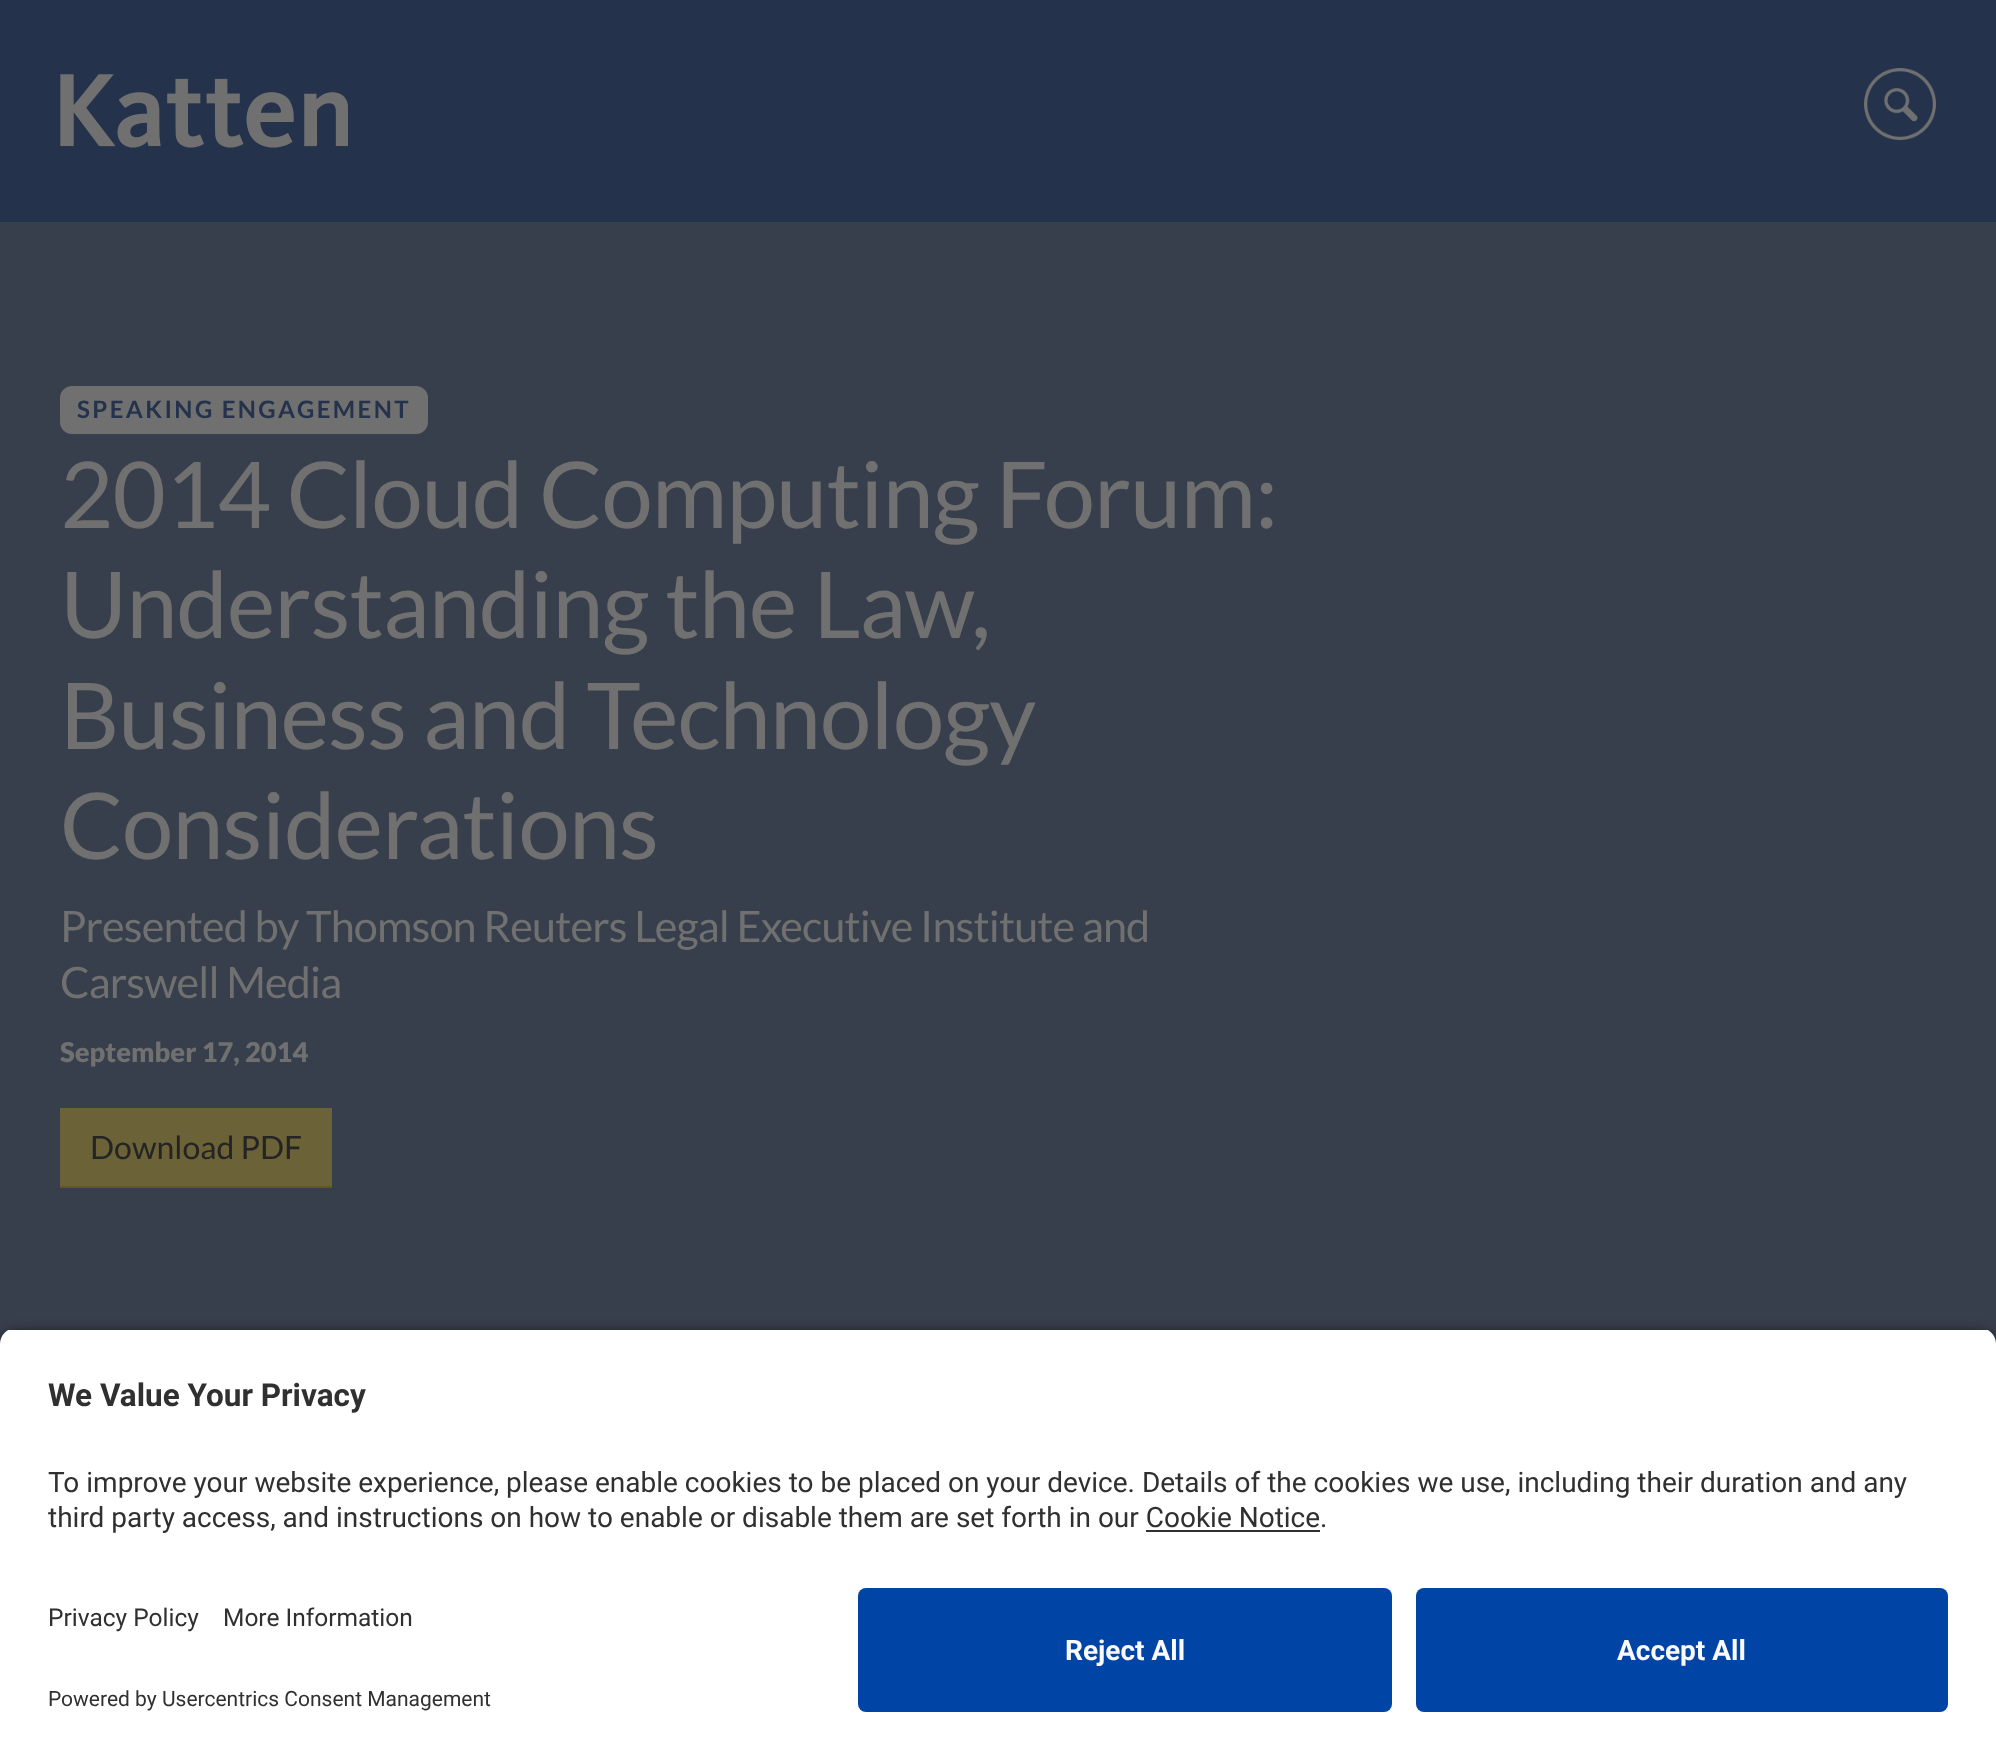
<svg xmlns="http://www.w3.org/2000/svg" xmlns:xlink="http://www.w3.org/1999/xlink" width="1996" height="1760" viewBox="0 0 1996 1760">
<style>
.cls-1{font:bold 24px Lato;letter-spacing:2.4px;fill:#24324c}
.cls-2{font:92px Lato;letter-spacing:-0.9px;fill:#707070}
.cls-3{font:43.2px Lato;letter-spacing:-0.85px;fill:#707070}
.cls-4{font:900 27.25px Lato;fill:#707070}
.cls-5{font:32px Lato;fill:#242424}
.cls-6{font:bold 31.5px Roboto;fill:#303030}
.cls-7{font:28px Roboto;fill:#303030}
.cls-8{font:24.5px Roboto;fill:#303030}
.cls-9{font:21px Roboto;fill:#303030}
.cls-10{font:bold 28px Roboto;fill:#fafafa}
</style>
<defs>
<clipPath id="clip1"><path d="M16 1328H1980C1989 1328 1996 1335 1996 1344V1572H0V1344C0 1335 7 1328 16 1328Z"/></clipPath>
</defs>
<rect width="100%" height="100%" fill="#383f4c"/>
<rect fill="#24324c" x="0" y="0" width="1996" height="222"/>
<image xlink:href="image0.png" x="60" y="74" width="288" height="74"/>
<image xlink:href="image1.png" x="1864" y="68" width="72" height="72"/>
<rect fill="#707070" x="60" y="386" width="368" height="48" rx="12"/>
<rect fill="#6c6237" x="60" y="1108" width="272" height="78"/>
<rect fill="#635724" x="60" y="1186" width="272" height="2"/>
<rect fill="#000000" fill-opacity="0.8" filter="blur(7px)" x="0" y="1334" width="1996" height="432" rx="16"/>
<g clip-path="url(#clip1)">
<rect fill="#ffffff" x="0" y="1330" width="1996" height="242"/>
</g>
<rect fill="#303030" x="1146" y="1530" width="174" height="2"/>
<rect fill="#ffffff" x="0" y="1572" width="1996" height="188"/>
<rect fill="#0045a5" x="858" y="1588" width="534" height="124" rx="8"/>
<rect fill="#0045a5" x="1416" y="1588" width="532" height="124" rx="8"/>
<text class="cls-1" x="77" y="418">SPEAKING ENGAGEMENT</text>
<text class="cls-2"><tspan x="60" y="528">2014 Cloud Computing Forum:</tspan><tspan x="60" y="638">Understanding the Law,</tspan><tspan x="60" y="749">Business and Technology</tspan><tspan x="60" y="859">Considerations</tspan></text>
<text class="cls-3"><tspan x="60" y="942">Presented by Thomson Reuters Legal Executive Institute and</tspan><tspan x="60" y="998">Carswell Media</tspan></text>
<text class="cls-4" x="60" y="1062">September 17, 2014</text>
<text class="cls-5" x="90" y="1159">Download PDF</text>
<text class="cls-6" x="48" y="1406">We Value Your Privacy</text>
<text class="cls-7"><tspan x="48" y="1492">To improve your website experience, please enable cookies to be placed on your device. Details of the cookies we use, including their duration and any</tspan><tspan x="48" y="1527">third party access, and instructions on how to enable or disable them are set forth in our Cookie Notice.</tspan></text>
<text class="cls-8" x="48" y="1626">Privacy Policy</text>
<text class="cls-8" x="223" y="1626">More Information</text>
<text class="cls-9" x="48" y="1706">Powered by Usercentrics Consent Management</text>
<text class="cls-10" x="1065" y="1660">Reject All</text>
<text class="cls-10" x="1617" y="1660">Accept All</text>
</svg>
